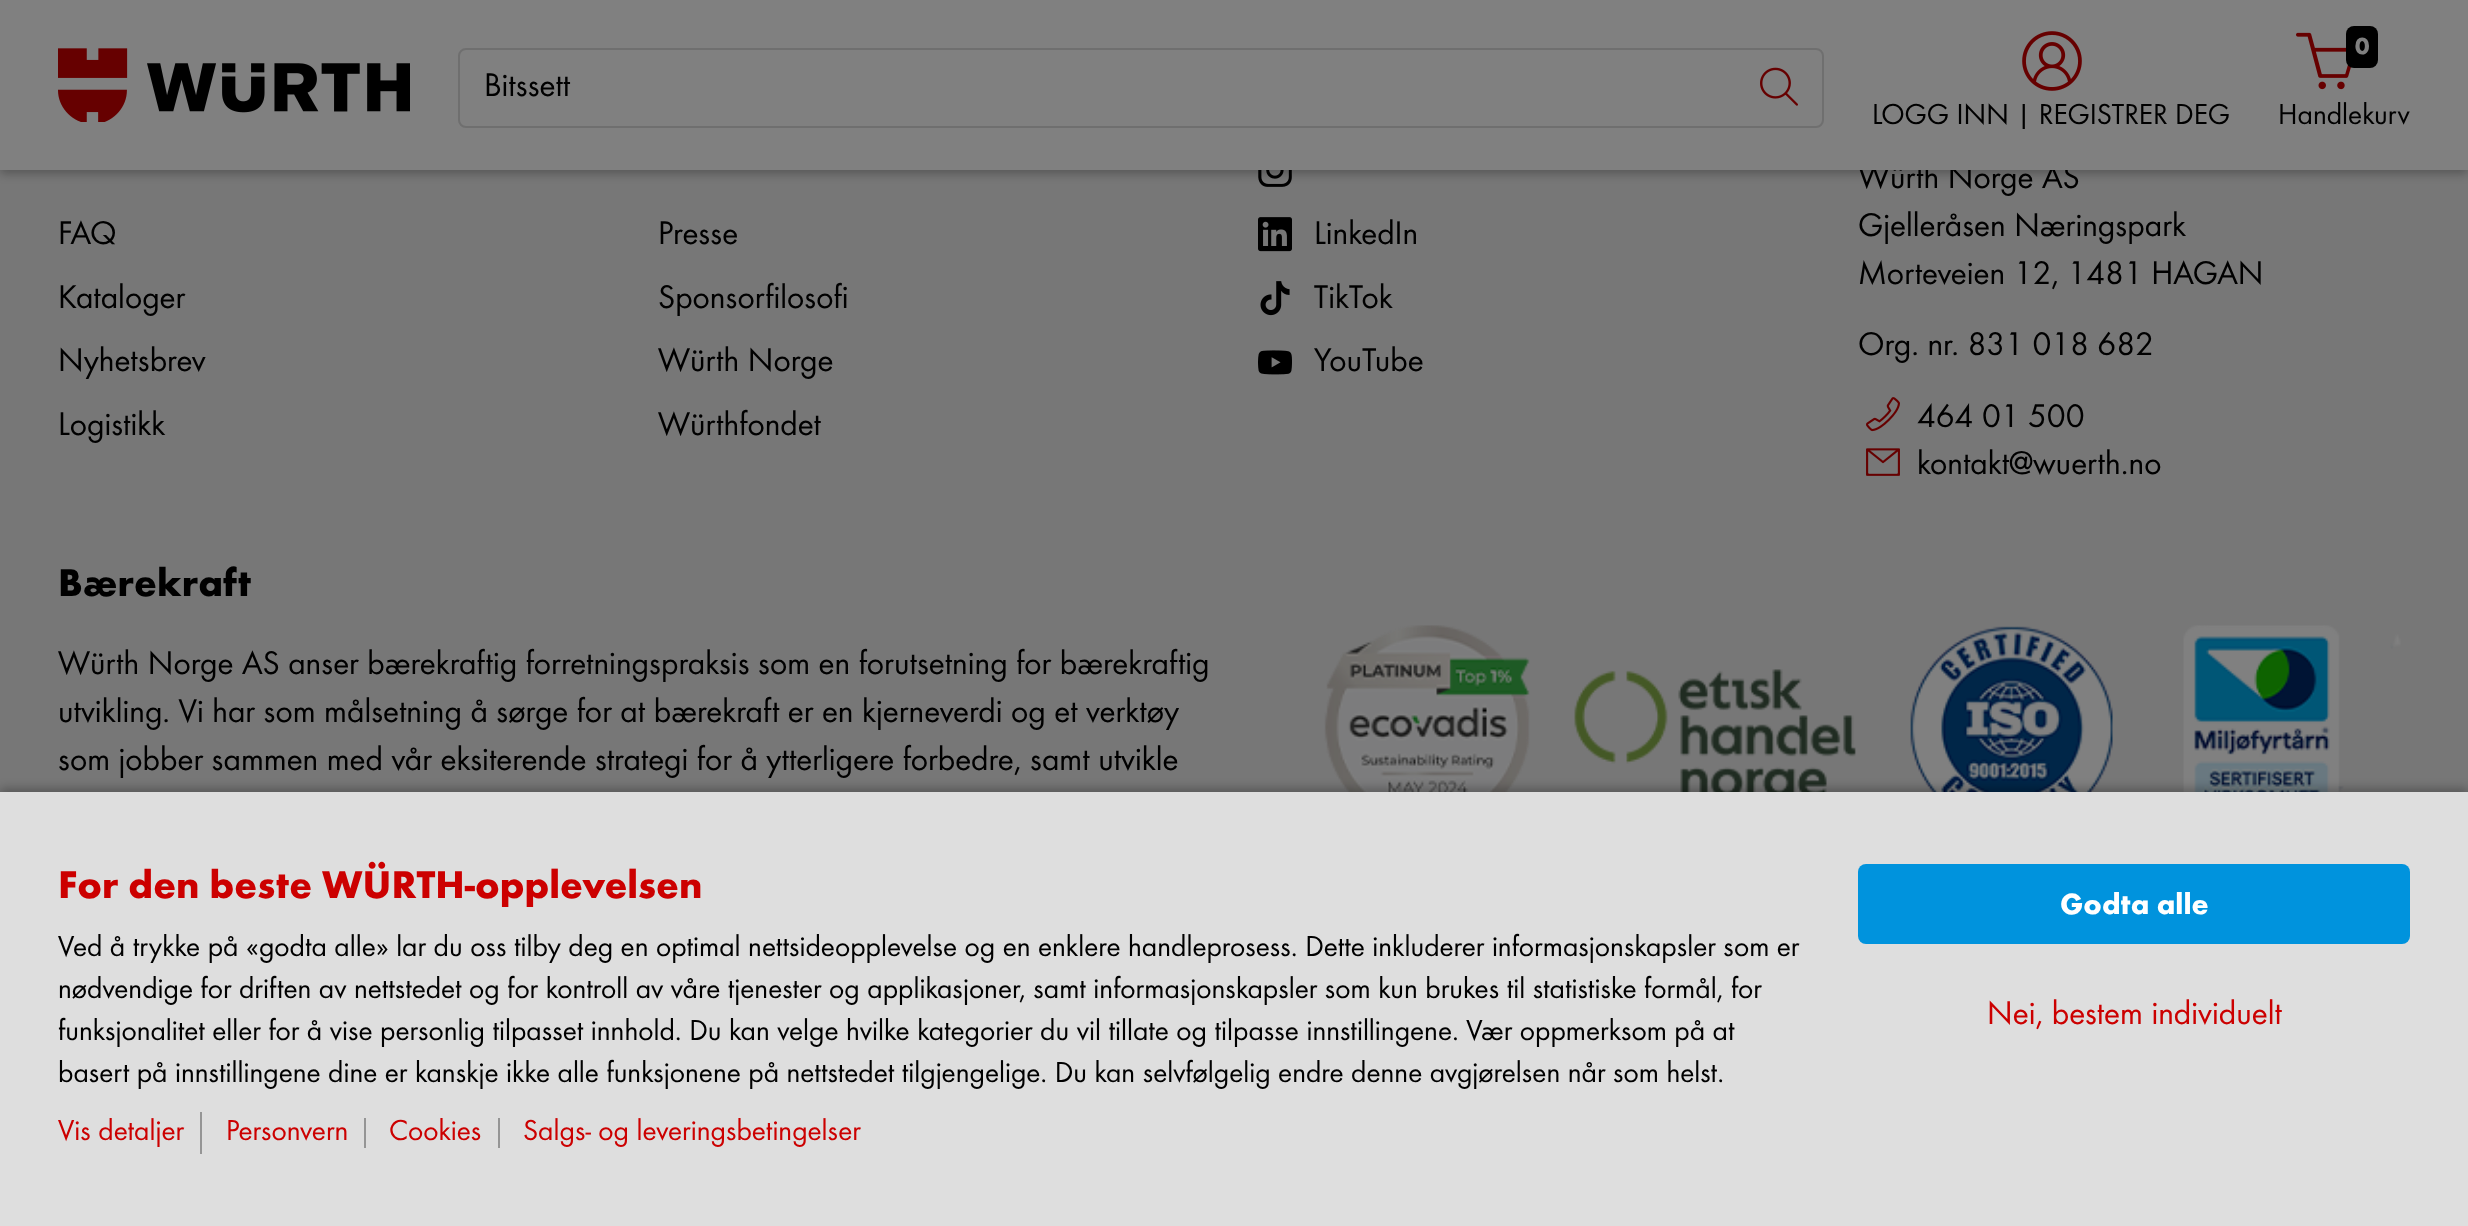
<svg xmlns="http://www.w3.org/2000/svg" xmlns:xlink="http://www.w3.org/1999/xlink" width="2468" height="1226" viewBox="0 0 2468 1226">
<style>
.cls-1{font:34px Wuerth;fill:#000000}
.cls-2{font:bold 24px Wuerth;fill:#808080}
.cls-3{font:30px Wuerth;fill:#000000}
.cls-4{font:bold 40px Wuerth;fill:#000000}
.cls-5{font:bold 40px Wuerth;fill:#cc0000}
.cls-6{font:30px Wuerth;fill:#cc0000}
.cls-7{font:bold 30px Wuerth;fill:#ffffff}
.cls-8{font:34px Wuerth;fill:#cc0000}
</style>
<rect width="100%" height="100%" fill="#777777"/>
<image xlink:href="image4.png" x="1258" y="170" width="34" height="17"/>
<rect fill="#000000" fill-opacity="0.26" filter="blur(5px)" x="0" y="4" width="2468" height="170"/>
<image xlink:href="image5.png" x="1258" y="217" width="34" height="35"/>
<image xlink:href="image6.png" x="1260" y="281" width="30" height="35"/>
<image xlink:href="image7.png" x="1258" y="350" width="34" height="25"/>
<image xlink:href="image8.png" x="1866" y="397" width="34" height="35"/>
<image xlink:href="image9.png" x="1866" y="448" width="34" height="28"/>
<image xlink:href="image10.png" x="1324" y="625" width="1077" height="167"/>
<rect fill="#000000" fill-opacity="0.26" filter="blur(5px)" x="0" y="788" width="2468" height="434"/>
<rect fill="#dedede" x="0" y="792" width="2468" height="434"/>
<rect fill="#959595" x="200" y="1112" width="2" height="42"/>
<rect fill="#959595" x="364" y="1118" width="2" height="30"/>
<rect fill="#959595" x="498" y="1118" width="2" height="30"/>
<rect fill="#0093dd" x="1858" y="864" width="552" height="80" rx="8"/>
<text class="cls-1"><tspan x="58" y="244">FAQ</tspan><tspan x="58" y="308">Kataloger</tspan><tspan x="58" y="371">Nyhetsbrev</tspan><tspan x="58" y="435">Logistikk</tspan></text>
<text class="cls-1"><tspan x="658" y="244">Presse</tspan><tspan x="658" y="308">Sponsorfilosofi</tspan><tspan x="658" y="371">Würth Norge</tspan><tspan x="658" y="435">Würthfondet</tspan></text>
<text class="cls-1"><tspan x="1314" y="244">LinkedIn</tspan><tspan x="1314" y="308">TikTok</tspan><tspan x="1314" y="371">YouTube</tspan></text>
<text class="cls-1" x="1858" y="188">Würth Norge AS</text>
<rect fill="#808080" x="0" y="0" width="2468" height="170"/>
<image xlink:href="image2.png" x="2296" y="32" width="55" height="58"/>
<rect fill="#000000" x="2346" y="26" width="32" height="42" rx="8"/>
<text class="cls-2" x="2355" y="54">0</text>
<text class="cls-3" x="2278" y="124">Handlekurv</text>
<rect fill="none" stroke="#6f6f6f" stroke-width="2" x="459" y="49" width="1364" height="78" rx="7"/>
<image xlink:href="image1.png" x="1760" y="67" width="38" height="39"/>
<image xlink:href="image3.png" x="2022" y="31" width="60" height="60"/>
<text class="cls-3" x="1872" y="124">LOGG INN | REGISTRER DEG</text>
<text class="cls-1" x="484" y="96">Bitssett</text>
<image xlink:href="image0.png" x="58" y="48" width="352" height="74"/>
<text class="cls-1"><tspan x="1858" y="236">Gjelleråsen Næringspark</tspan><tspan x="1858" y="284">Morteveien 12, 1481 HAGAN</tspan></text>
<text class="cls-1" x="1858" y="355">Org. nr. 831 018 682</text>
<text class="cls-1"><tspan x="1917" y="427">464 01 500</tspan><tspan x="1917" y="474">kontakt@wuerth.no</tspan></text>
<text class="cls-4" x="58" y="596">Bærekraft</text>
<text class="cls-1"><tspan x="58" y="674">Würth Norge AS anser bærekraftig forretningspraksis som en forutsetning for bærekraftig</tspan><tspan x="58" y="722">utvikling. Vi har som målsetning å sørge for at bærekraft er en kjerneverdi og et verktøy</tspan><tspan x="58" y="770">som jobber sammen med vår eksiterende strategi for å ytterligere forbedre, samt utvikle</tspan></text>
<text class="cls-5" x="58" y="898">For den beste WÜRTH-opplevelsen</text>
<text class="cls-3"><tspan x="58" y="956">Ved å trykke på «godta alle» lar du oss tilby deg en optimal nettsideopplevelse og en enklere handleprosess. Dette inkluderer informasjonskapsler som er</tspan><tspan x="58" y="998">nødvendige for driften av nettstedet og for kontroll av våre tjenester og applikasjoner, samt informasjonskapsler som kun brukes til statistiske formål, for</tspan><tspan x="58" y="1040">funksjonalitet eller for å vise personlig tilpasset innhold. Du kan velge hvilke kategorier du vil tillate og tilpasse innstillingene. Vær oppmerksom på at</tspan><tspan x="58" y="1082">basert på innstillingene dine er kanskje ikke alle funksjonene på nettstedet tilgjengelige. Du kan selvfølgelig endre denne avgjørelsen når som helst.</tspan></text>
<text class="cls-6" x="58" y="1140">Vis detaljer</text>
<text class="cls-6" x="226" y="1140">Personvern</text>
<text class="cls-6" x="389" y="1140">Cookies</text>
<text class="cls-6" x="523" y="1140">Salgs- og leveringsbetingelser</text>
<text class="cls-7" x="2060" y="914">Godta alle</text>
<text class="cls-8" x="1987" y="1024">Nei, bestem individuelt</text>
</svg>
